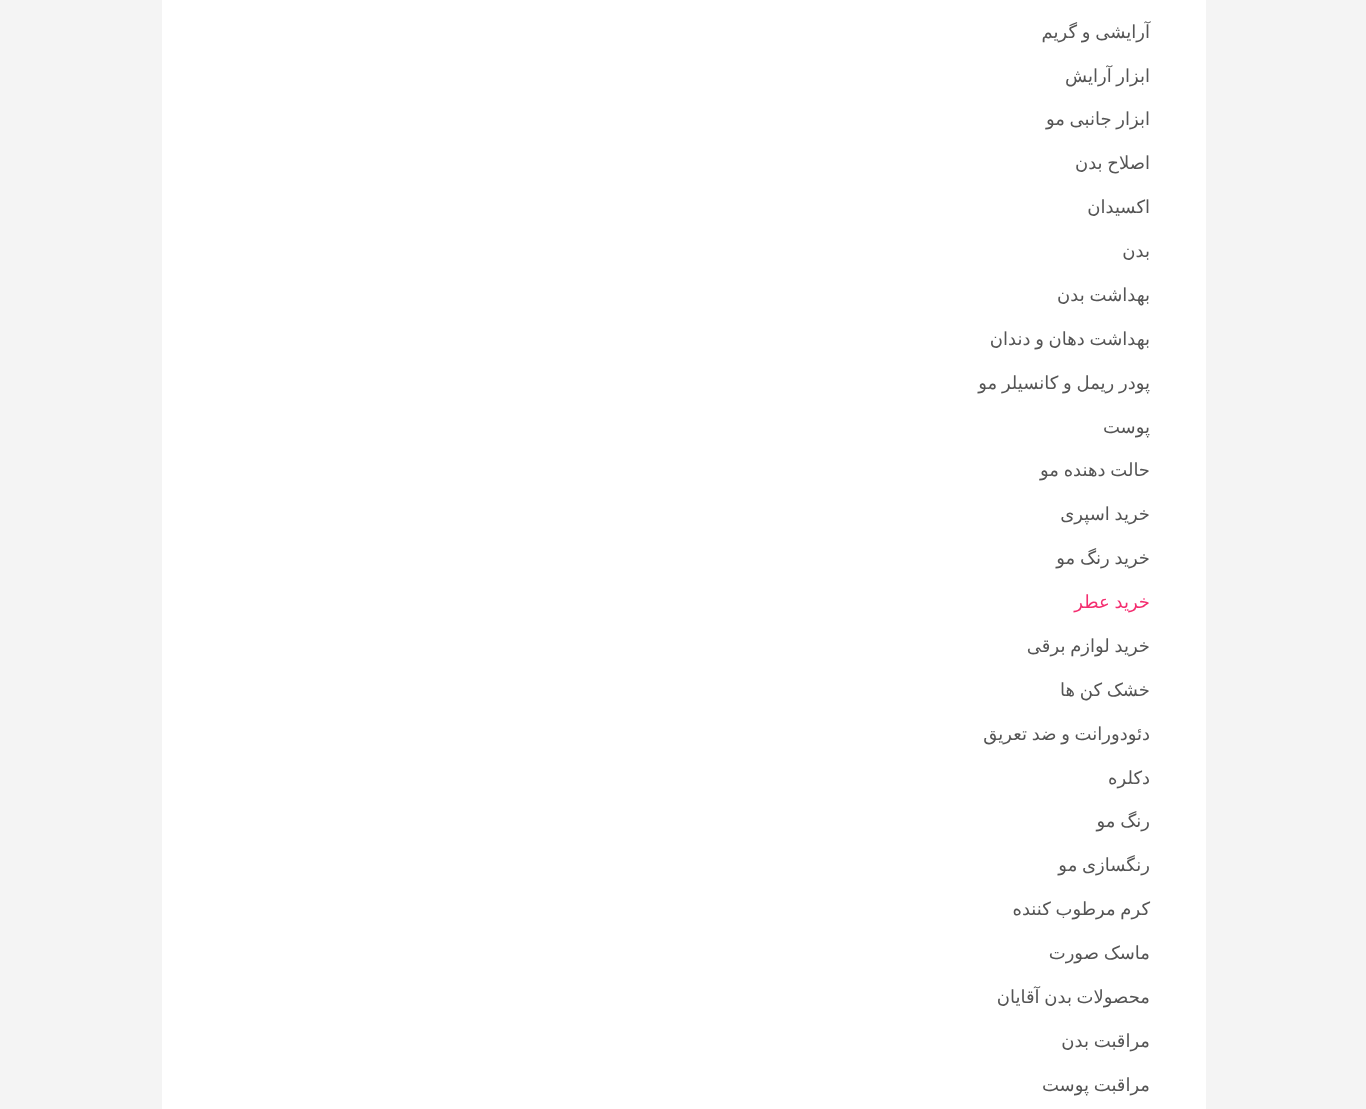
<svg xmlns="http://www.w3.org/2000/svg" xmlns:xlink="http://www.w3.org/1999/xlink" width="1366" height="1109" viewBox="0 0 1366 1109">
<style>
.cls-1{font:18px DejaVu Sans;direction:rtl;fill:#555555}
.cls-2{font:18px DejaVu Sans;direction:rtl;fill:#f42e70}
</style>
<rect width="100%" height="100%" fill="#f4f4f4"/>
<rect fill="#ffffff" x="162" y="0" width="1044" height="1109"/>
<text class="cls-1" x="1150" y="38" word-spacing="-1">آرایشی و گریم</text>
<text class="cls-1" x="1150" y="82" word-spacing="-1">ابزار آرایش</text>
<text class="cls-1" x="1150" y="125" word-spacing="-1">ابزار جانبی مو</text>
<text class="cls-1" x="1150" y="169" word-spacing="-1">اصلاح بدن</text>
<text class="cls-1" x="1150" y="213">اکسیدان</text>
<text class="cls-1" x="1150" y="257">بدن</text>
<text class="cls-1" x="1150" y="301" word-spacing="-1">بهداشت بدن</text>
<text class="cls-1" x="1150" y="345" word-spacing="-1">بهداشت دهان و دندان</text>
<text class="cls-1" x="1150" y="389" word-spacing="-1">پودر ریمل و کانسیلر مو</text>
<text class="cls-1" x="1150" y="433">پوست</text>
<text class="cls-1" x="1150" y="476" word-spacing="-1">حالت دهنده مو</text>
<text class="cls-1" x="1150" y="520" word-spacing="-1">خرید اسپری</text>
<text class="cls-1" x="1150" y="564" word-spacing="-1">خرید رنگ مو</text>
<text class="cls-2" x="1150" y="608" word-spacing="-1">خرید عطر</text>
<text class="cls-1" x="1150" y="652" word-spacing="-1">خرید لوازم برقی</text>
<text class="cls-1" x="1150" y="696" word-spacing="-1">خشک کن ها</text>
<text class="cls-1" x="1150" y="740" word-spacing="-1">دئودورانت و ضد تعریق</text>
<text class="cls-1" x="1150" y="784">دکلره</text>
<text class="cls-1" x="1150" y="827" word-spacing="-1">رنگ مو</text>
<text class="cls-1" x="1150" y="871" word-spacing="-1">رنگسازی مو</text>
<text class="cls-1" x="1150" y="915" word-spacing="-1">کرم مرطوب کننده</text>
<text class="cls-1" x="1150" y="959" word-spacing="-1">ماسک صورت</text>
<text class="cls-1" x="1150" y="1003" word-spacing="-1">محصولات بدن آقایان</text>
<text class="cls-1" x="1150" y="1047" word-spacing="-1">مراقبت بدن</text>
<text class="cls-1" x="1150" y="1091" word-spacing="-1">مراقبت پوست</text>
</svg>
